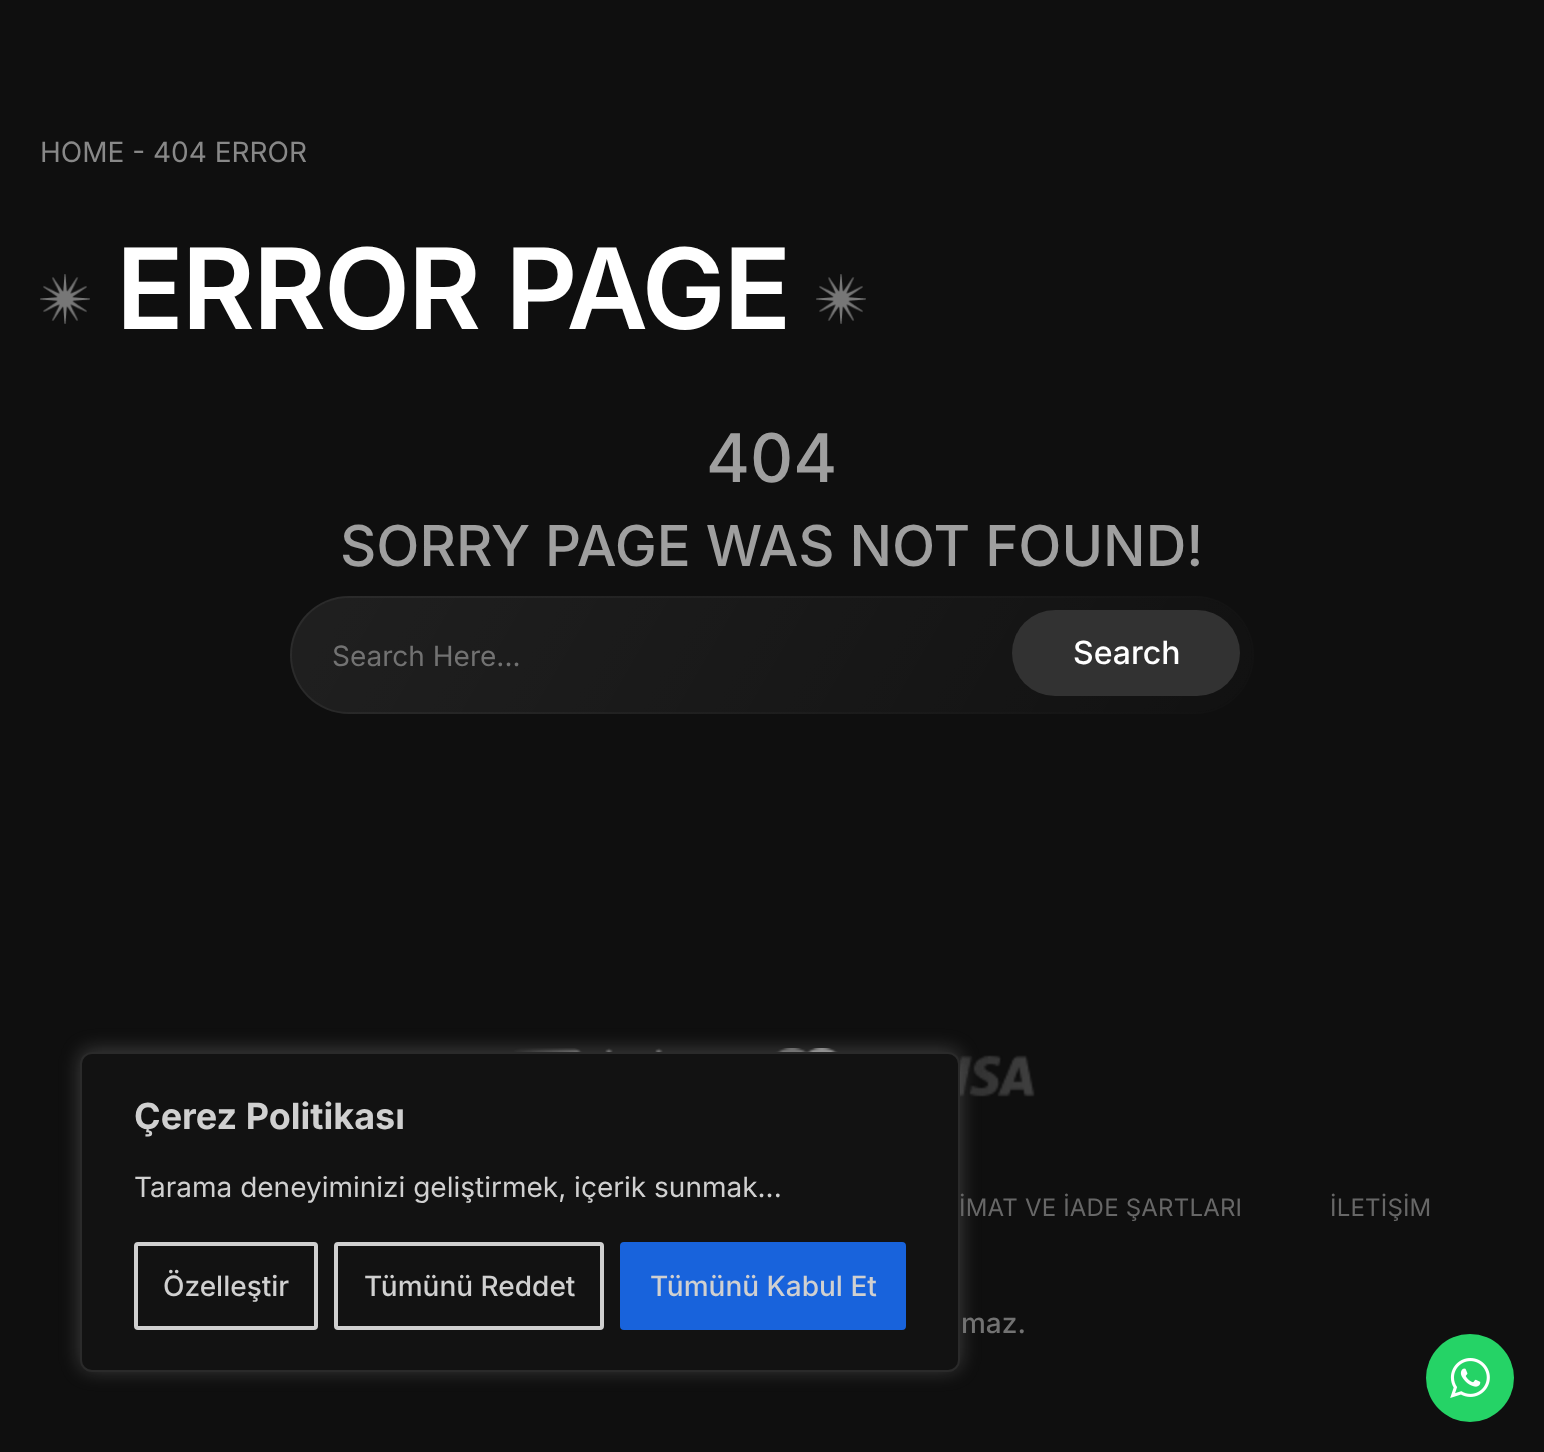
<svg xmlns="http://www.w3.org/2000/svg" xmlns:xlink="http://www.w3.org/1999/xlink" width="1544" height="1452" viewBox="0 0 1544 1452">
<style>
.cls-1{font:28px Inter;fill:#888888}
.cls-2{font:600 112px Inter;letter-spacing:-2px;fill:#ffffff}
.cls-3{font:500 67px Inter;fill:#9f9f9f}
.cls-4{font:500 56.25px Inter;fill:#9f9f9f}
.cls-5{font:28px Inter;fill:#727272}
.cls-6{font:500 32px Inter;fill:#ffffff}
.cls-7{font:24px Inter;letter-spacing:0.2px;fill:#676767}
.cls-8{font:500 28px Inter;fill:#727272}
.cls-9{font:bold 36px Inter;fill:#d0d0d0}
.cls-10{font:28px Inter;fill:#d0d0d0}
.cls-11{font:500 28px Inter;fill:#d0d0d0}
</style>
<defs>
<linearGradient id="g1" gradientUnits="userSpaceOnUse" x1="385" y1="432" x2="1159" y2="878"><stop offset="0" stop-color="#2c2c2c"/><stop offset="1" stop-color="#111111"/></linearGradient>
<linearGradient id="g2" gradientUnits="userSpaceOnUse" x1="387" y1="433" x2="1157" y2="877"><stop offset="0" stop-color="#ffffff" stop-opacity="0.07"/><stop offset="1" stop-color="#ffffff" stop-opacity="0.01"/></linearGradient>
</defs>
<rect width="100%" height="100%" fill="#0f0f0f"/>
<image xlink:href="image0.png" x="40" y="274" width="50" height="50"/>
<image xlink:href="image1.png" x="816" y="274" width="50" height="50"/>
<rect fill="url(#g1)" x="290" y="596" width="964" height="118" rx="59"/>
<rect fill="#0f0f0f" x="292" y="598" width="960" height="114" rx="57"/>
<rect fill="url(#g2)" x="292" y="598" width="960" height="114" rx="57"/>
<rect fill="#323232" x="1012" y="610" width="228" height="86" rx="43"/>
<image xlink:href="image2.png" x="514" y="1048" width="521" height="49"/>
<rect fill="#acabab" fill-opacity="0.3" filter="blur(10px)" x="80" y="1050" width="880" height="320" rx="12"/>
<rect fill="#121212" stroke="#2a2a2a" stroke-width="2" x="81" y="1053" width="878" height="318" rx="11"/>
<rect fill="none" stroke="#d0d0d0" stroke-width="4" x="136" y="1244" width="180" height="84" rx="2"/>
<rect fill="none" stroke="#d0d0d0" stroke-width="4" x="336" y="1244" width="266" height="84" rx="2"/>
<rect fill="#1863dc" stroke="#1863dc" stroke-width="4" x="622" y="1244" width="282" height="84" rx="2"/>
<circle fill="#25d366" cx="1470" cy="1378" r="44"/>
<image xlink:href="image3.png" x="1450" y="1358" width="40" height="40"/>
<text class="cls-1" x="40" y="162">HOME - 404 ERROR</text>
<text class="cls-2" x="116" y="329">ERROR PAGE</text>
<text class="cls-3" x="706" y="482">404</text>
<text class="cls-4" x="340" y="566">SORRY PAGE WAS NOT FOUND!</text>
<text class="cls-5" x="332" y="666">Search Here...</text>
<text class="cls-6" x="1073" y="664">Search</text>
<text class="cls-7" x="959" y="1216">İMAT VE İADE ŞARTLARI</text>
<text class="cls-7" x="1330" y="1216">İLETİŞİM</text>
<text class="cls-8" x="961" y="1333">maz.</text>
<text class="cls-9" x="134" y="1129">Çerez Politikası</text>
<text class="cls-10" x="134" y="1197">Tarama deneyiminizi geliştirmek, içerik sunmak...</text>
<text class="cls-11" x="163" y="1296">Özelleştir</text>
<text class="cls-11" x="364" y="1296">Tümünü Reddet</text>
<text class="cls-11" x="650" y="1296">Tümünü Kabul Et</text>
</svg>
